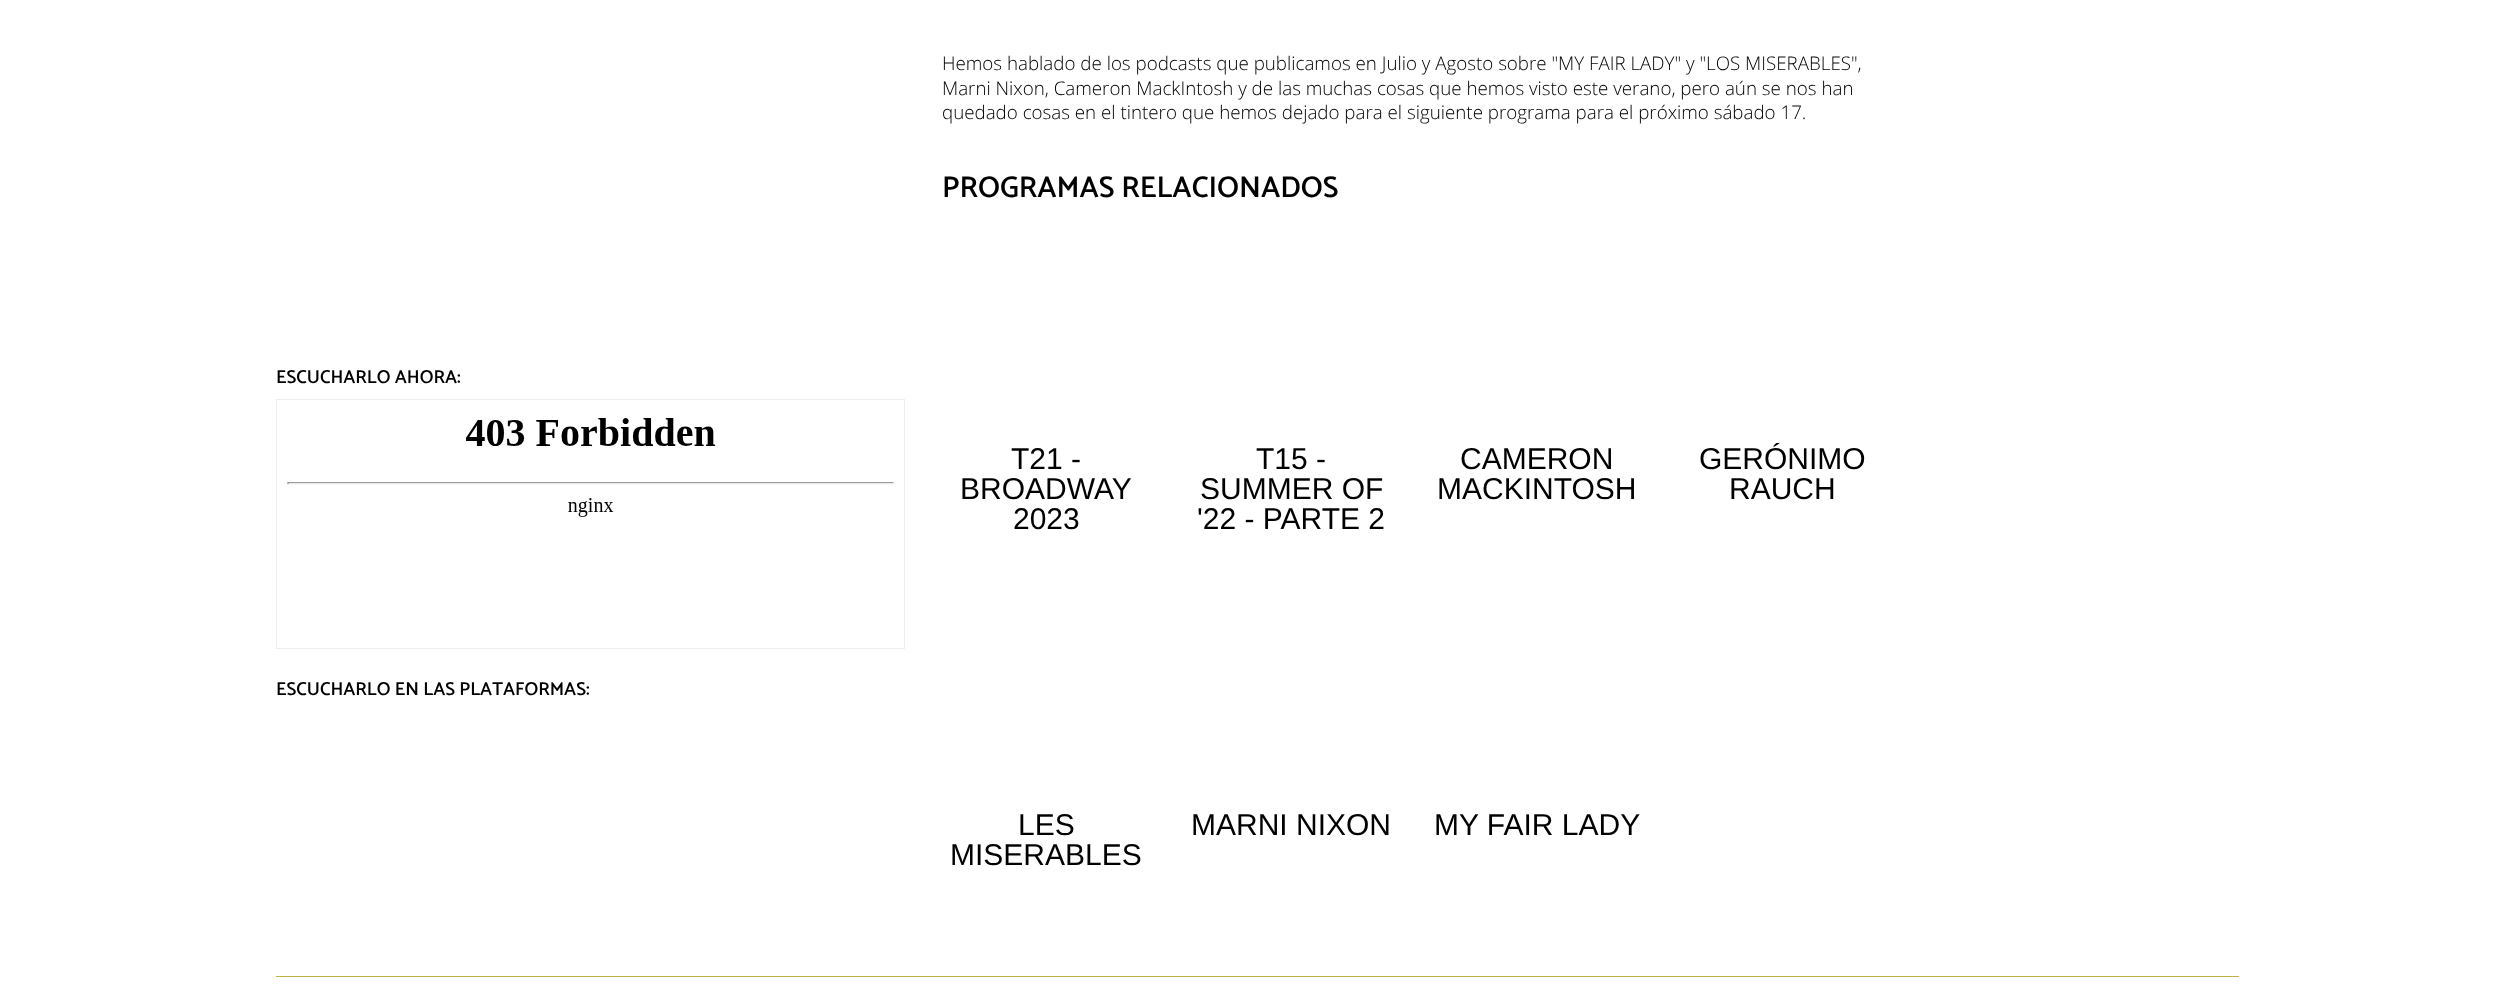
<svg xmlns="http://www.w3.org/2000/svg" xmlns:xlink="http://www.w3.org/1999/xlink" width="2513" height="1000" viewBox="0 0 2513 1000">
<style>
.cls-1{font:100 18.75px Catamaran;fill:#000000}
.cls-2{font:300 18.75px Open Sans;fill:#000000}
.cls-3{font:100 30px Catamaran;fill:#000000}
.cls-4{font:30px Liberation Sans;fill:#000000}
</style>
<rect width="100%" height="100%" fill="#ffffff"/>
<rect fill="none" stroke="#eeeeee" x="276.5" y="399.5" width="628" height="249"/>
<image xlink:href="image0.png" x="287" y="418" width="607" height="99"/>
<rect fill="#c0b245" x="276" y="976" width="1963" height="1"/>
<text class="cls-1" x="276" y="383">ESCUCHARLO AHORA:</text>
<text class="cls-1" x="276" y="695">ESCUCHARLO EN LAS PLATAFORMAS:</text>
<text class="cls-2"><tspan x="942" y="70">Hemos hablado de los podcasts que publicamos en Julio y Agosto sobre "MY FAIR LADY" y "LOS MISERABLES",</tspan><tspan x="942" y="95">Marni Nixon, Cameron MackIntosh y de las muchas cosas que hemos visto este verano, pero aún se nos han</tspan><tspan x="942" y="119">quedado cosas en el tintero que hemos dejado para el siguiente programa para el próximo sábado 17.</tspan></text>
<text class="cls-3" x="942" y="197">PROGRAMAS RELACIONADOS</text>
<text class="cls-4" x="1011" y="469">T21 -</text>
<text class="cls-4" x="960" y="499">BROADWAY</text>
<text class="cls-4" x="1013" y="529">2023</text>
<text class="cls-4" x="1256" y="469">T15 -</text>
<text class="cls-4" x="1200" y="499">SUMMER OF</text>
<text class="cls-4" x="1197" y="529">'22 - PARTE 2</text>
<text class="cls-4" x="1460" y="469">CAMERON</text>
<text class="cls-4" x="1437" y="499">MACKINTOSH</text>
<text class="cls-4" x="1699" y="469">GERÓNIMO</text>
<text class="cls-4" x="1729" y="499">RAUCH</text>
<text class="cls-4" x="1018" y="835">LES</text>
<text class="cls-4" x="950" y="865">MISERABLES</text>
<text class="cls-4" x="1191" y="835">MARNI NIXON</text>
<text class="cls-4" x="1434" y="835">MY FAIR LADY</text>
</svg>
